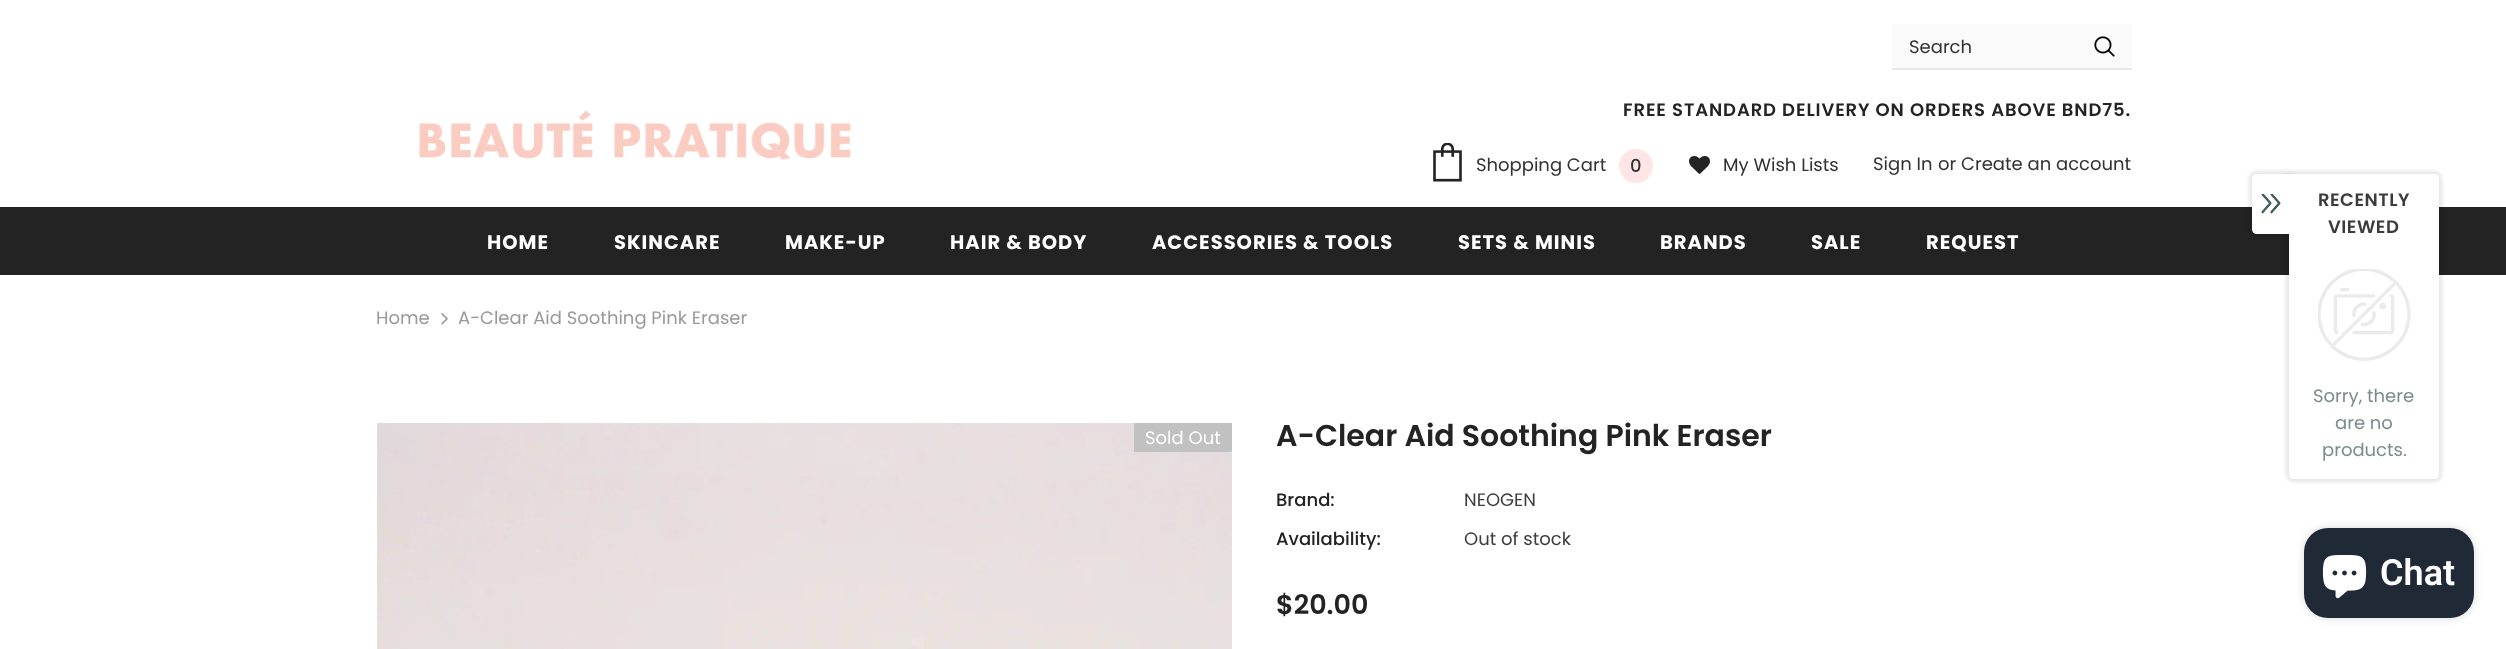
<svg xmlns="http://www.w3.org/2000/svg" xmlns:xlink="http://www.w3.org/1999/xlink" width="2506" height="649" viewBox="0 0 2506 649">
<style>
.cls-1{font:18px Poppins;fill:#323232}
.cls-2{font:600 18px Poppins;letter-spacing:0.9px;fill:#232323}
.cls-3{font:500 18px Poppins;fill:#323232}
.cls-4{font:bold 19.5px Poppins;letter-spacing:1px;fill:#ffffff}
.cls-5{font:18px Poppins;fill:#999999}
.cls-6{font:18px Poppins;fill:#ffffff}
.cls-7{font:600 30px Poppins;fill:#232323}
.cls-8{font:500 18px Poppins;fill:#232323}
.cls-9{font:18px Poppins;fill:#3c3c3c}
.cls-10{font:600 27px Poppins;fill:#232323}
.cls-11{font:600 18px Poppins;letter-spacing:0.5px;fill:#3c3c3c}
.cls-12{font:18px Poppins;fill:#7d8b8e}
.cls-13{font:600 36px Roboto;fill:#ffffff}
</style>
<defs>
<clipPath id="clip1"><rect x="1910" y="33" width="144" height="27"/></clipPath>
</defs>
<rect width="100%" height="100%" fill="#ffffff"/>
<rect fill="#fafafa" x="1892" y="24" width="240" height="44"/>
<rect fill="#e7e7e7" x="1892" y="68" width="240" height="2"/>
<image xlink:href="image0.png" x="2094" y="36" width="21" height="21"/>
<image xlink:href="image1.png" x="419" y="110" width="432" height="50"/>
<image xlink:href="image2.png" x="1433" y="143" width="29" height="39"/>
<circle fill="#ffe5e5" cx="1636" cy="166" r="17"/>
<image xlink:href="image3.png" x="1689" y="156" width="21" height="18"/>
<rect fill="#232323" x="0" y="207" width="2506" height="68"/>
<image xlink:href="image4.png" x="441" y="313" width="7" height="12"/>
<image xlink:href="image5.png" x="377" y="423" width="855" height="226"/>
<rect fill="#c1c1c1" x="1134" y="423" width="98" height="29" rx="1.5"/>
<rect fill="#000000" fill-opacity="0.1" filter="blur(2px)" x="2286" y="171" width="156" height="311" rx="8"/>
<path fill="#ffffff" d="M2289 174H2434C2437 174 2439 176 2439 179V474C2439 477 2437 479 2434 479H2294C2291 479 2289 477 2289 474Z"/>
<rect fill="#000000" fill-opacity="0.1" filter="blur(2px)" x="2249" y="171" width="45" height="66" rx="8"/>
<path fill="#ffffff" d="M2257 174H2291V234H2257C2254 234 2252 232 2252 229V179C2252 176 2254 174 2257 174Z"/>
<image xlink:href="image6.png" x="2261" y="194" width="20" height="20"/>
<rect fill="#ffffff" x="2289" y="174" width="8" height="65"/>
<image xlink:href="image7.png" x="2318" y="269" width="93" height="92"/>
<rect fill="#000000" fill-opacity="0.15" filter="blur(4px)" x="2304" y="528" width="170" height="90" rx="24"/>
<rect fill="#202a36" x="2304" y="528" width="170" height="90" rx="24"/>
<image xlink:href="image8.png" x="2322" y="555" width="45" height="44"/>
<g clip-path="url(#clip1)">
<text class="cls-1" x="1909" y="53">Search</text>
</g>
<text class="cls-2" x="1623" y="116">FREE STANDARD DELIVERY ON ORDERS ABOVE BND75.</text>
<text class="cls-1" x="1476" y="171">Shopping Cart</text>
<text class="cls-3" x="1630" y="172">0</text>
<text class="cls-1" x="1723" y="171">My Wish Lists</text>
<text class="cls-1" x="1873" y="170">Sign In</text>
<text class="cls-1" x="1938" y="170">or Create an account</text>
<text class="cls-4" x="487" y="249">HOME</text>
<text class="cls-4" x="614" y="249">SKINCARE</text>
<text class="cls-4" x="785" y="249">MAKE-UP</text>
<text class="cls-4" x="950" y="249">HAIR &amp; BODY</text>
<text class="cls-4" x="1152" y="249">ACCESSORIES &amp; TOOLS</text>
<text class="cls-4" x="1458" y="249">SETS &amp; MINIS</text>
<text class="cls-4" x="1660" y="249">BRANDS</text>
<text class="cls-4" x="1811" y="249">SALE</text>
<text class="cls-4" x="1926" y="249">REQUEST</text>
<text class="cls-5" x="376" y="324">Home</text>
<text class="cls-5" x="458" y="324">A-Clear Aid Soothing Pink Eraser</text>
<text class="cls-6" x="1145" y="444">Sold Out</text>
<text class="cls-7" x="1276" y="446">A-Clear Aid Soothing Pink Eraser</text>
<text class="cls-8" x="1276" y="506">Brand:</text>
<text class="cls-9" x="1464" y="506">NEOGEN</text>
<text class="cls-8" x="1276" y="545">Availability:</text>
<text class="cls-9" x="1464" y="545">Out of stock</text>
<text class="cls-10" x="1276" y="614">$20.00</text>
<text class="cls-11" x="2318" y="206">RECENTLY</text>
<text class="cls-11" x="2328" y="233">VIEWED</text>
<text class="cls-12" x="2313" y="402">Sorry, there</text>
<text class="cls-12" x="2335" y="429">are no</text>
<text class="cls-12" x="2322" y="456">products.</text>
<text class="cls-13" x="2380" y="585">Chat</text>
</svg>
